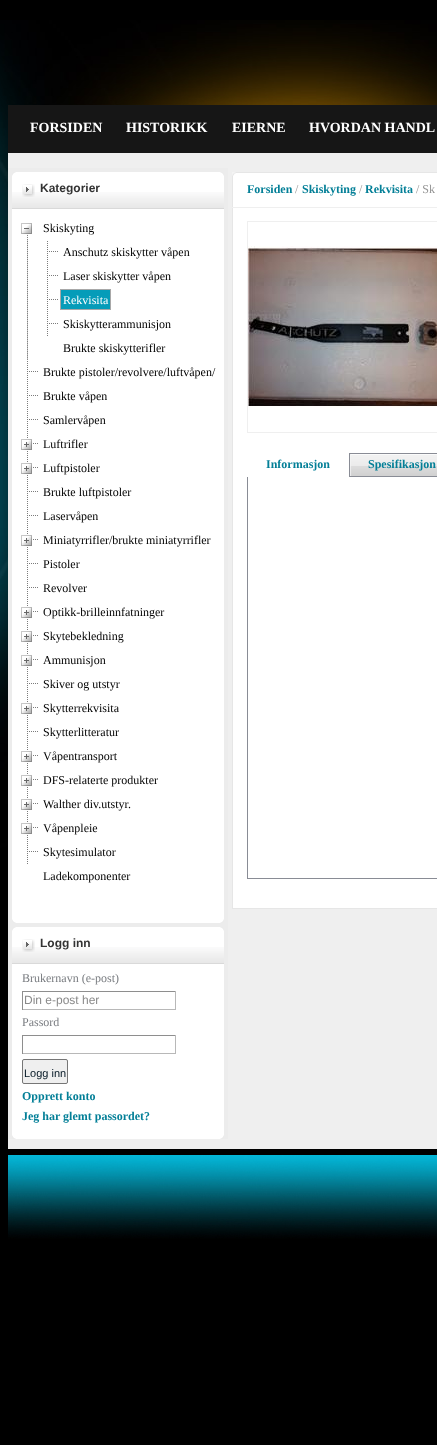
<svg xmlns="http://www.w3.org/2000/svg" xmlns:xlink="http://www.w3.org/1999/xlink" width="437" height="1445" viewBox="0 0 437 1445">
<style>
.cls-1{font:bold 14px Liberation Serif;fill:#ffffff}
.cls-2{font:bold 12px Liberation Sans;fill:#333333}
.cls-3{font:12px Liberation Serif;fill:#000000}
.cls-4{font:12px Liberation Serif;fill:#ffffff}
.cls-5{font:12px Liberation Serif;fill:#797c80}
.cls-6{font:12px Liberation Sans;fill:#8a8a8a}
.cls-7{font:11px Liberation Sans;fill:#031623}
.cls-8{font:bold 12px Liberation Serif;fill:#037f97}
.cls-9{font:12px Liberation Serif;fill:#949494}
</style>
<rect width="100%" height="100%" fill="#000000"/>
<image xlink:href="image0.png" x="0" y="20" width="437" height="955"/>
<rect fill="#efefef" x="8" y="153" width="429" height="996"/>
<rect fill="#161616" x="8" y="105" width="429" height="48"/>
<rect fill="#ffffff" x="12" y="172" width="212" height="751"/>
<rect fill="#ececec" x="8" y="168" width="220" height="4"/>
<rect fill="#ececec" x="224" y="172" width="4" height="751"/>
<rect fill="#ececec" x="8" y="172" width="4" height="751"/>
<image xlink:href="image1.png" x="220" y="919" width="4" height="4"/>
<image xlink:href="image2.png" x="12" y="919" width="4" height="4"/>
<image xlink:href="image3.png" x="220" y="172" width="4" height="4"/>
<image xlink:href="image4.png" x="12" y="172" width="4" height="4"/>
<image xlink:href="image5.png" x="12" y="192" width="212" height="17"/>
<image xlink:href="image6.png" x="22" y="184" width="13" height="13"/>
<image xlink:href="image7.png" x="27" y="234" width="1" height="126"/>
<image xlink:href="image8.png" x="21" y="223" width="11" height="11"/>
<image xlink:href="image9.png" x="27" y="240" width="1" height="120"/>
<image xlink:href="image10.png" x="47" y="241" width="1" height="23"/>
<image xlink:href="image11.png" x="49" y="251" width="9" height="1"/>
<image xlink:href="image10.png" x="47" y="265" width="1" height="23"/>
<image xlink:href="image11.png" x="49" y="275" width="9" height="1"/>
<image xlink:href="image10.png" x="47" y="289" width="1" height="23"/>
<image xlink:href="image11.png" x="49" y="299" width="9" height="1"/>
<rect fill="#059cb9" stroke="#a8a8a8" x="60.5" y="289.5" width="50" height="20"/>
<image xlink:href="image10.png" x="47" y="313" width="1" height="23"/>
<image xlink:href="image11.png" x="49" y="323" width="9" height="1"/>
<image xlink:href="image10.png" x="27" y="361" width="1" height="23"/>
<image xlink:href="image11.png" x="29" y="371" width="9" height="1"/>
<image xlink:href="image10.png" x="27" y="385" width="1" height="23"/>
<image xlink:href="image11.png" x="29" y="395" width="9" height="1"/>
<image xlink:href="image10.png" x="27" y="409" width="1" height="23"/>
<image xlink:href="image11.png" x="29" y="419" width="9" height="1"/>
<image xlink:href="image10.png" x="27" y="433" width="1" height="23"/>
<image xlink:href="image12.png" x="33" y="443" width="5" height="1"/>
<image xlink:href="image13.png" x="21" y="439" width="11" height="11"/>
<image xlink:href="image10.png" x="27" y="457" width="1" height="23"/>
<image xlink:href="image12.png" x="33" y="467" width="5" height="1"/>
<image xlink:href="image13.png" x="21" y="463" width="11" height="11"/>
<image xlink:href="image10.png" x="27" y="481" width="1" height="23"/>
<image xlink:href="image11.png" x="29" y="491" width="9" height="1"/>
<image xlink:href="image10.png" x="27" y="505" width="1" height="23"/>
<image xlink:href="image11.png" x="29" y="515" width="9" height="1"/>
<image xlink:href="image10.png" x="27" y="529" width="1" height="23"/>
<image xlink:href="image12.png" x="33" y="539" width="5" height="1"/>
<image xlink:href="image13.png" x="21" y="535" width="11" height="11"/>
<image xlink:href="image10.png" x="27" y="553" width="1" height="23"/>
<image xlink:href="image11.png" x="29" y="563" width="9" height="1"/>
<image xlink:href="image10.png" x="27" y="577" width="1" height="23"/>
<image xlink:href="image11.png" x="29" y="587" width="9" height="1"/>
<image xlink:href="image10.png" x="27" y="601" width="1" height="23"/>
<image xlink:href="image12.png" x="33" y="611" width="5" height="1"/>
<image xlink:href="image13.png" x="21" y="607" width="11" height="11"/>
<image xlink:href="image10.png" x="27" y="625" width="1" height="23"/>
<image xlink:href="image12.png" x="33" y="635" width="5" height="1"/>
<image xlink:href="image13.png" x="21" y="631" width="11" height="11"/>
<image xlink:href="image10.png" x="27" y="649" width="1" height="23"/>
<image xlink:href="image12.png" x="33" y="659" width="5" height="1"/>
<image xlink:href="image13.png" x="21" y="655" width="11" height="11"/>
<image xlink:href="image10.png" x="27" y="673" width="1" height="23"/>
<image xlink:href="image11.png" x="29" y="683" width="9" height="1"/>
<image xlink:href="image10.png" x="27" y="697" width="1" height="23"/>
<image xlink:href="image12.png" x="33" y="707" width="5" height="1"/>
<image xlink:href="image13.png" x="21" y="703" width="11" height="11"/>
<image xlink:href="image10.png" x="27" y="721" width="1" height="23"/>
<image xlink:href="image11.png" x="29" y="731" width="9" height="1"/>
<image xlink:href="image10.png" x="27" y="745" width="1" height="23"/>
<image xlink:href="image12.png" x="33" y="755" width="5" height="1"/>
<image xlink:href="image13.png" x="21" y="751" width="11" height="11"/>
<image xlink:href="image10.png" x="27" y="769" width="1" height="23"/>
<image xlink:href="image12.png" x="33" y="779" width="5" height="1"/>
<image xlink:href="image13.png" x="21" y="775" width="11" height="11"/>
<image xlink:href="image10.png" x="27" y="793" width="1" height="23"/>
<image xlink:href="image12.png" x="33" y="803" width="5" height="1"/>
<image xlink:href="image13.png" x="21" y="799" width="11" height="11"/>
<image xlink:href="image10.png" x="27" y="817" width="1" height="23"/>
<image xlink:href="image12.png" x="33" y="827" width="5" height="1"/>
<image xlink:href="image13.png" x="21" y="823" width="11" height="11"/>
<image xlink:href="image10.png" x="27" y="841" width="1" height="23"/>
<image xlink:href="image11.png" x="29" y="851" width="9" height="1"/>
<rect fill="#ffffff" x="12" y="927" width="212" height="212"/>
<rect fill="#ececec" x="8" y="923" width="220" height="4"/>
<rect fill="#ececec" x="224" y="927" width="4" height="212"/>
<rect fill="#ececec" x="8" y="927" width="4" height="212"/>
<image xlink:href="image1.png" x="220" y="1135" width="4" height="4"/>
<image xlink:href="image2.png" x="12" y="1135" width="4" height="4"/>
<image xlink:href="image3.png" x="220" y="927" width="4" height="4"/>
<image xlink:href="image4.png" x="12" y="927" width="4" height="4"/>
<image xlink:href="image5.png" x="12" y="947" width="212" height="17"/>
<image xlink:href="image6.png" x="22" y="939" width="13" height="13"/>
<rect fill="#8e8e8e" x="22" y="991" width="154" height="1"/>
<rect fill="#b8b8b8" x="175" y="991" width="1" height="19"/>
<rect fill="#b8b8b8" x="22" y="1009" width="154" height="1"/>
<rect fill="#8e8e8e" x="22" y="991" width="1" height="19"/>
<rect fill="#8e8e8e" x="22" y="1035" width="154" height="1"/>
<rect fill="#b8b8b8" x="175" y="1035" width="1" height="19"/>
<rect fill="#b8b8b8" x="22" y="1053" width="154" height="1"/>
<rect fill="#8e8e8e" x="22" y="1035" width="1" height="19"/>
<rect fill="#efefef" stroke="#767676" x="22.5" y="1059.5" width="45" height="24" rx="1.5"/>
<rect fill="#ffffff" x="233" y="173" width="204" height="735"/>
<rect fill="#e6e6e6" x="232" y="908" width="205" height="1"/>
<rect fill="#e6e6e6" x="232" y="172" width="205" height="1"/>
<rect fill="#e6e6e6" x="232" y="173" width="1" height="735"/>
<image xlink:href="image14.png" x="232" y="172" width="4" height="4"/>
<rect fill="#efefef" x="232" y="207" width="205" height="1"/>
<rect fill="none" stroke="#efefef" x="247.5" y="221.5" width="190" height="211"/>
<image xlink:href="image15.png" x="248" y="246" width="189" height="162"/>
<rect fill="none" stroke="#898c95" x="247.5" y="476.5" width="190" height="402"/>
<rect fill="#ffffff" x="247" y="476" width="102" height="1"/>
<image xlink:href="image16.png" x="349" y="453" width="9" height="23"/>
<image xlink:href="image17.png" x="358" y="453" width="79" height="23"/>
<image xlink:href="image18.png" x="8" y="1155" width="429" height="84"/>
<text class="cls-1" x="30" y="132">FORSIDEN</text>
<text class="cls-1" x="126" y="132">HISTORIKK</text>
<text class="cls-1" x="232" y="132">EIERNE</text>
<text class="cls-1" x="309" y="132">HVORDAN HANDL</text>
<text class="cls-2" x="40" y="192">Kategorier</text>
<text class="cls-3" x="43" y="232">Skiskyting</text>
<text class="cls-3" x="63" y="256">Anschutz skiskytter våpen</text>
<text class="cls-3" x="63" y="280">Laser skiskytter våpen</text>
<text class="cls-4" x="63" y="304">Rekvisita</text>
<text class="cls-3" x="63" y="328">Skiskytterammunisjon</text>
<text class="cls-3" x="63" y="352">Brukte skiskytterifler</text>
<text class="cls-3" x="43" y="376">Brukte pistoler/revolvere/luftvåpen/</text>
<text class="cls-3" x="43" y="400">Brukte våpen</text>
<text class="cls-3" x="43" y="424">Samlervåpen</text>
<text class="cls-3" x="43" y="448">Luftrifler</text>
<text class="cls-3" x="43" y="472">Luftpistoler</text>
<text class="cls-3" x="43" y="496">Brukte luftpistoler</text>
<text class="cls-3" x="43" y="520">Laservåpen</text>
<text class="cls-3" x="43" y="544">Miniatyrrifler/brukte miniatyrrifler</text>
<text class="cls-3" x="43" y="568">Pistoler</text>
<text class="cls-3" x="43" y="592">Revolver</text>
<text class="cls-3" x="43" y="616">Optikk-brilleinnfatninger</text>
<text class="cls-3" x="43" y="640">Skytebekledning</text>
<text class="cls-3" x="43" y="664">Ammunisjon</text>
<text class="cls-3" x="43" y="688">Skiver og utstyr</text>
<text class="cls-3" x="43" y="712">Skytterrekvisita</text>
<text class="cls-3" x="43" y="736">Skytterlitteratur</text>
<text class="cls-3" x="43" y="760">Våpentransport</text>
<text class="cls-3" x="43" y="784">DFS-relaterte produkter</text>
<text class="cls-3" x="43" y="808">Walther div.utstyr.</text>
<text class="cls-3" x="43" y="832">Våpenpleie</text>
<text class="cls-3" x="43" y="856">Skytesimulator</text>
<text class="cls-3" x="43" y="880">Ladekomponenter</text>
<text class="cls-2" x="40" y="947">Logg inn</text>
<text class="cls-5" x="22" y="982">Brukernavn (e-post)</text>
<text class="cls-6" x="24" y="1004">Din e-post her</text>
<text class="cls-5" x="22" y="1026">Passord</text>
<text class="cls-7" x="24" y="1077">Logg inn</text>
<text class="cls-8"><tspan x="22" y="1100">Opprett konto</tspan><tspan x="22" y="1120">Jeg har glemt passordet?</tspan></text>
<text class="cls-8" x="247" y="193">Forsiden</text>
<text class="cls-9" x="295" y="193">/</text>
<text class="cls-8" x="302" y="193">Skiskyting</text>
<text class="cls-9" x="359" y="193">/</text>
<text class="cls-8" x="365" y="193">Rekvisita</text>
<text class="cls-9" x="416" y="193">/ Sk</text>
<text class="cls-8" x="266" y="468">Informasjon</text>
<text class="cls-8" x="368" y="468">Spesifikasjon</text>
</svg>
